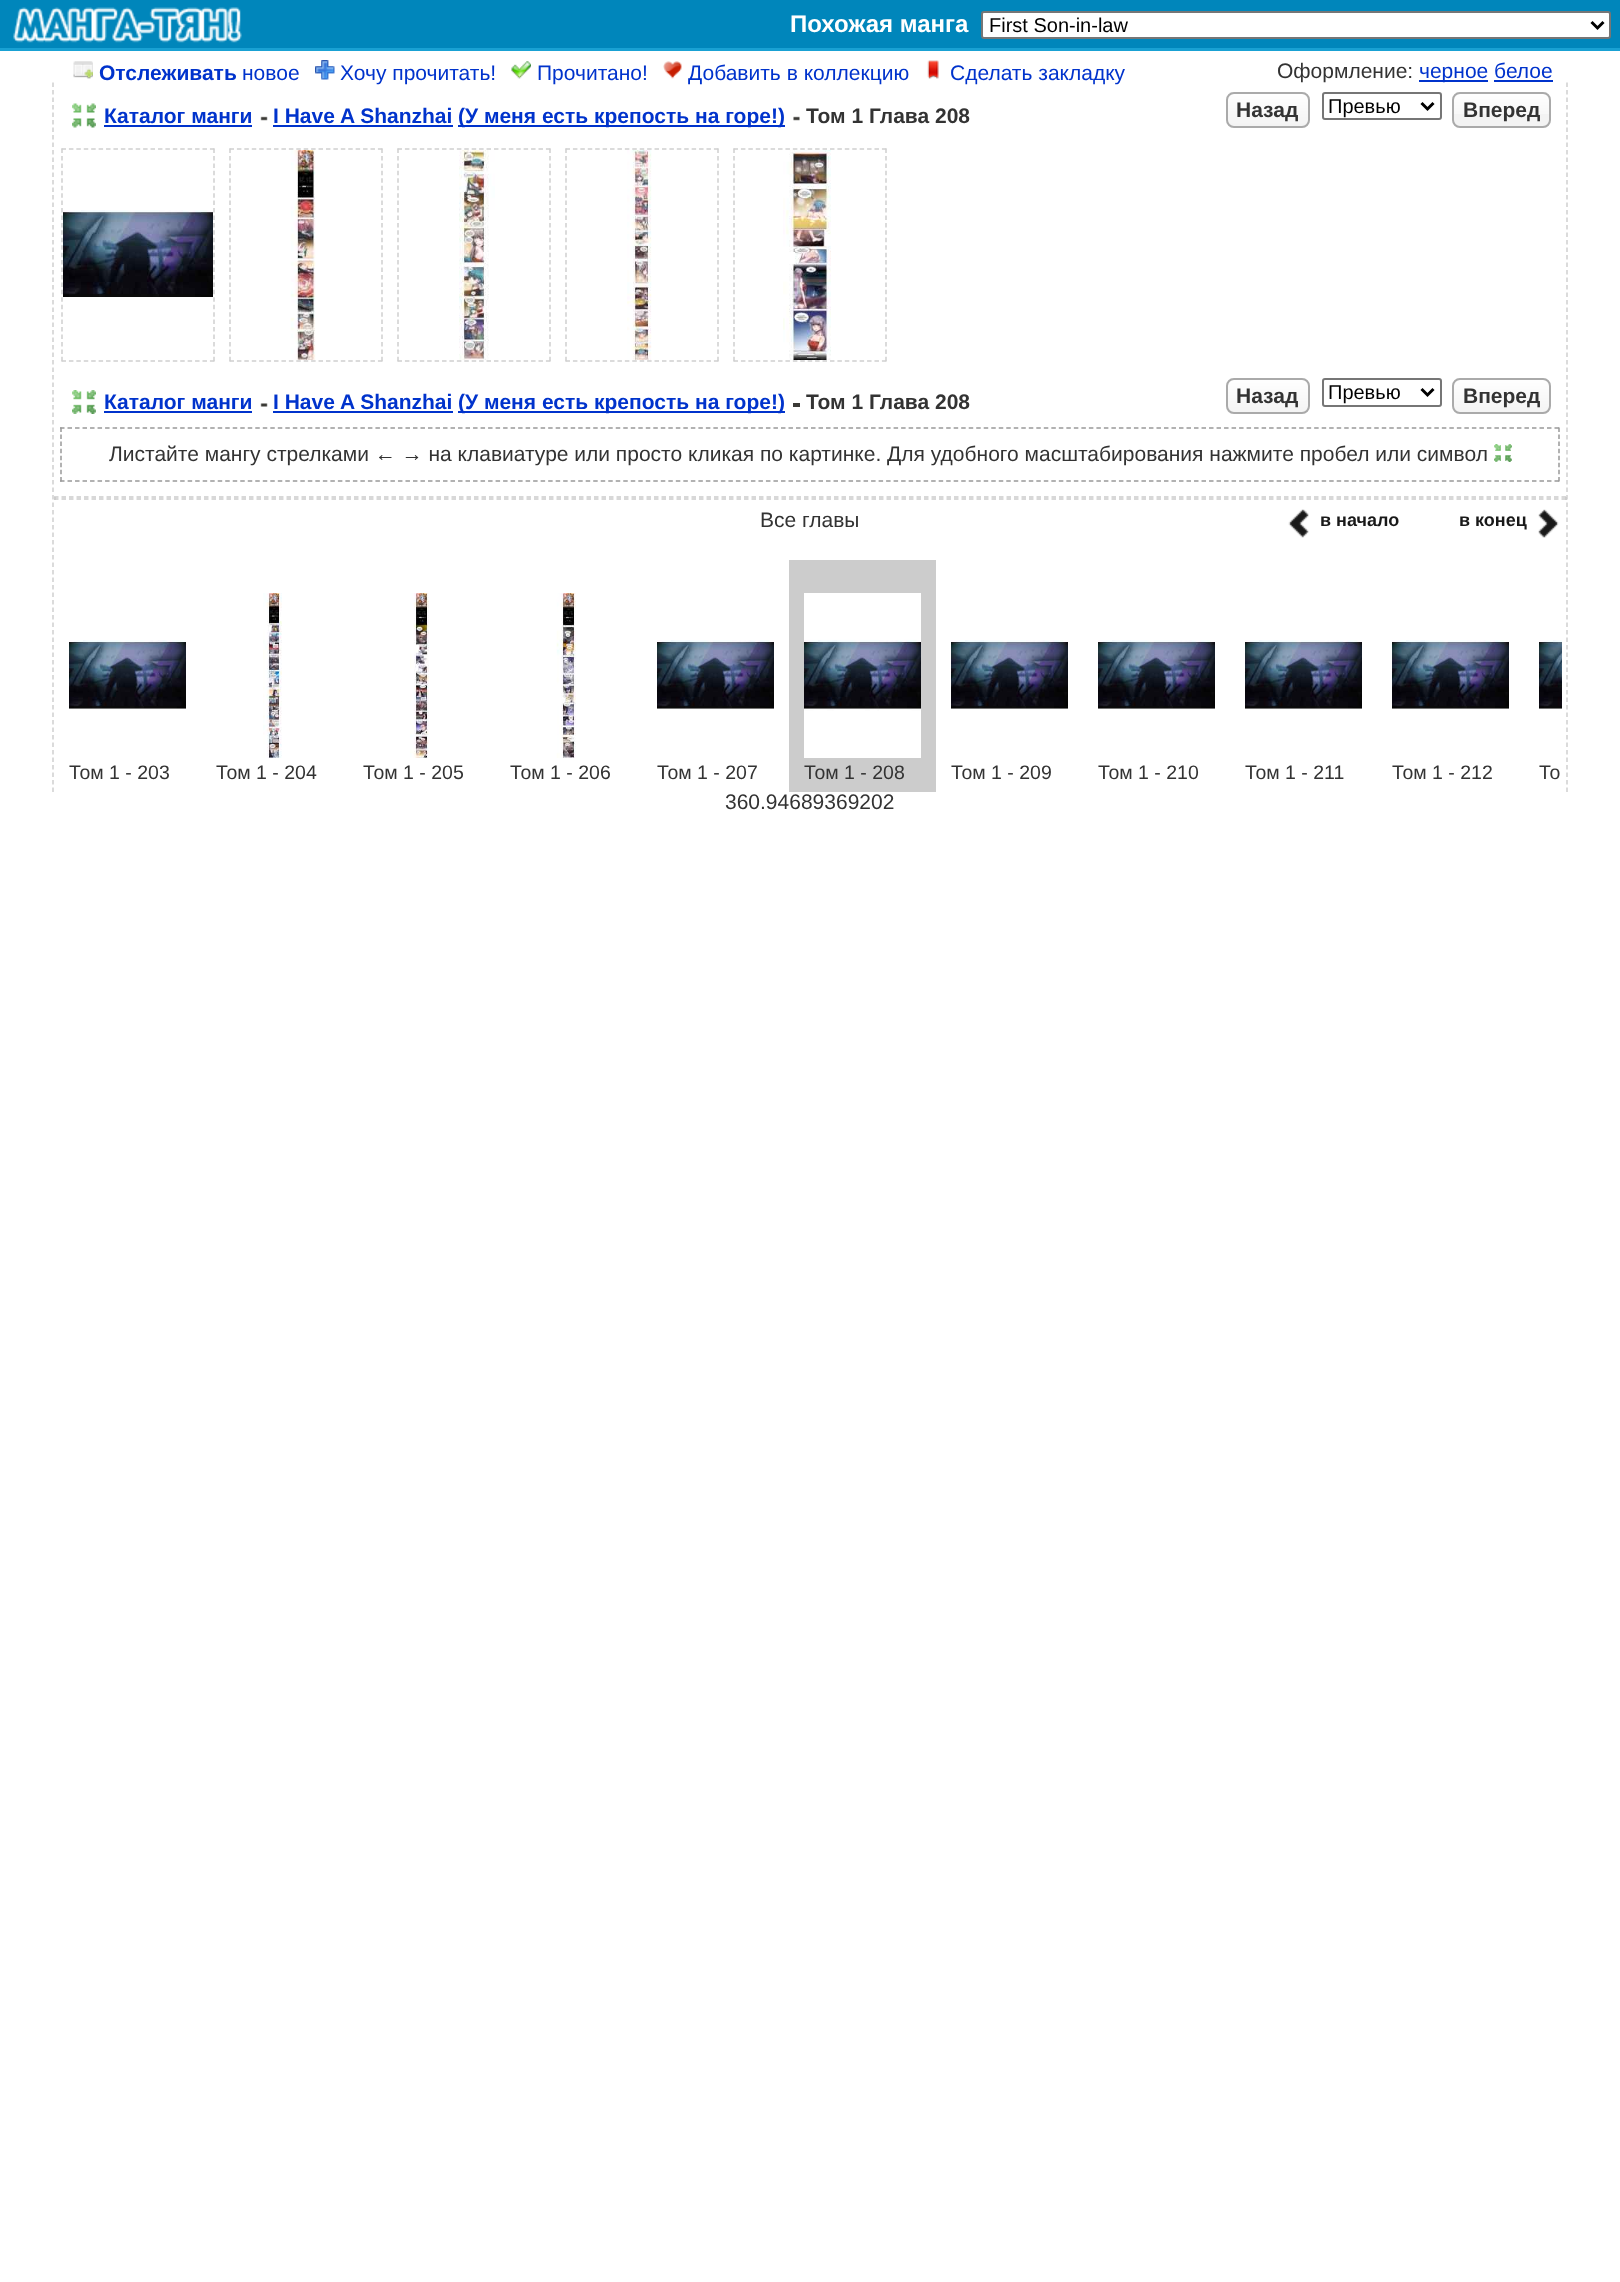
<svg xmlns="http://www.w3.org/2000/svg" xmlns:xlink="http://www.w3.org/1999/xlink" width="1620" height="2282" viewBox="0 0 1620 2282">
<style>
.cls-1{font:bold 24px Liberation Sans;fill:#ffffff}
.cls-2{font:20px Liberation Sans;fill:#000000}
.cls-3{font:bold 21px Liberation Sans;fill:#0033cc}
.cls-4{font:21px Liberation Sans;fill:#0033cc}
.cls-5{font:21px Liberation Sans;fill:#333333}
.cls-6{font:bold 21px Liberation Sans;fill:#333333}
.cls-7{font:bold 18px Liberation Sans;fill:#191919}
.cls-8{font:19.5px Liberation Sans;fill:#333333}
</style>
<rect width="100%" height="100%" fill="#ffffff"/>
<rect fill="#0086bb" x="0" y="0" width="1620" height="48"/>
<rect fill="#19a1d3" x="0" y="48" width="1620" height="3"/>
<image xlink:href="image0.png" x="13" y="7" width="229" height="36"/>
<rect fill="#ffffff" stroke="#767676" stroke-width="2" x="982" y="12" width="628" height="26" rx="2"/>
<path fill="none" stroke="#000000" stroke-width="3" d="M1591.5 22L1597.5 28L1603.5 22"/>
<image xlink:href="image1.png" x="73" y="61" width="20" height="18"/>
<image xlink:href="image2.png" x="315" y="60" width="20" height="20"/>
<image xlink:href="image3.png" x="511" y="61" width="20" height="18"/>
<image xlink:href="image4.png" x="663" y="61" width="19" height="18"/>
<image xlink:href="image5.png" x="927" y="60" width="12" height="19"/>
<rect fill="#0033cc" x="1419" y="80" width="69" height="2"/>
<rect fill="#0033cc" x="1494" y="80" width="59" height="2"/>
<path fill="none" stroke="#cfcfcf" stroke-width="1.5" stroke-dasharray="4.5 3" d="M1567 82.5V792"/>
<path fill="none" stroke="#cfcfcf" stroke-width="1.5" stroke-dasharray="4.5 3" d="M53 82.5V792"/>
<image xlink:href="image6.png" x="72" y="103" width="24" height="25"/>
<rect fill="#0033cc" x="104" y="125" width="148" height="2"/>
<image xlink:href="image7.png" x="260" y="116" width="8" height="5"/>
<rect fill="#0033cc" x="273" y="125" width="180" height="2"/>
<rect fill="#0033cc" x="458" y="125" width="327" height="2"/>
<image xlink:href="image8.png" x="793" y="116" width="7" height="5"/>
<rect fill="#f3f3f3" x="1226" y="92" width="84" height="36" rx="8"/>
<image xlink:href="image9.png" x="1226" y="92" width="83" height="32"/>
<rect fill="none" stroke="#aaaaaa" stroke-width="2" x="1227" y="93" width="82" height="34" rx="7"/>
<rect fill="none" stroke="#767676" stroke-width="2" x="1323" y="93" width="118" height="26" rx="2"/>
<path fill="none" stroke="#000000" stroke-width="3" d="M1421.5 103L1427.5 109L1433.5 103"/>
<rect fill="#f3f3f3" x="1452" y="92" width="99" height="36" rx="8"/>
<image xlink:href="image10.png" x="1452" y="92" width="99" height="22"/>
<rect fill="none" stroke="#aaaaaa" stroke-width="2" x="1453" y="93" width="97" height="34" rx="7"/>
<path fill="none" stroke="#cfcfcf" stroke-width="1.5" stroke-dasharray="4.5 2.92" d="M61.5 149H214.5"/>
<path fill="none" stroke="#cfcfcf" stroke-width="1.5" stroke-dasharray="4.5 2.94" d="M214 148.5V361.5"/>
<path fill="none" stroke="#cfcfcf" stroke-width="1.5" stroke-dasharray="4.5 2.92" d="M61.5 361H214.5"/>
<path fill="none" stroke="#cfcfcf" stroke-width="1.5" stroke-dasharray="4.5 2.94" d="M62 148.5V361.5"/>
<path fill="none" stroke="#cfcfcf" stroke-width="1.5" stroke-dasharray="4.5 2.92" d="M229.5 149H382.5"/>
<path fill="none" stroke="#cfcfcf" stroke-width="1.5" stroke-dasharray="4.5 2.94" d="M382 148.5V361.5"/>
<path fill="none" stroke="#cfcfcf" stroke-width="1.5" stroke-dasharray="4.5 2.92" d="M229.5 361H382.5"/>
<path fill="none" stroke="#cfcfcf" stroke-width="1.5" stroke-dasharray="4.5 2.94" d="M230 148.5V361.5"/>
<path fill="none" stroke="#cfcfcf" stroke-width="1.5" stroke-dasharray="4.5 2.92" d="M397.5 149H550.5"/>
<path fill="none" stroke="#cfcfcf" stroke-width="1.5" stroke-dasharray="4.5 2.94" d="M550 148.5V361.5"/>
<path fill="none" stroke="#cfcfcf" stroke-width="1.5" stroke-dasharray="4.5 2.92" d="M397.5 361H550.5"/>
<path fill="none" stroke="#cfcfcf" stroke-width="1.5" stroke-dasharray="4.5 2.94" d="M398 148.5V361.5"/>
<path fill="none" stroke="#cfcfcf" stroke-width="1.5" stroke-dasharray="4.5 2.92" d="M565.5 149H718.5"/>
<path fill="none" stroke="#cfcfcf" stroke-width="1.5" stroke-dasharray="4.5 2.94" d="M718 148.5V361.5"/>
<path fill="none" stroke="#cfcfcf" stroke-width="1.5" stroke-dasharray="4.5 2.92" d="M565.5 361H718.5"/>
<path fill="none" stroke="#cfcfcf" stroke-width="1.5" stroke-dasharray="4.5 2.94" d="M566 148.5V361.5"/>
<path fill="none" stroke="#cfcfcf" stroke-width="1.5" stroke-dasharray="4.5 2.92" d="M733.5 149H886.5"/>
<image xlink:href="image11.png" x="63" y="210" width="150" height="87"/>
<image xlink:href="image12.png" x="290" y="150" width="26" height="210"/>
<image xlink:href="image13.png" x="459" y="150" width="36" height="210"/>
<image xlink:href="image14.png" x="627" y="150" width="25" height="210"/>
<path fill="none" stroke="#cfcfcf" stroke-width="1.5" stroke-dasharray="4.5 2.94" d="M886 148.5V361.5"/>
<path fill="none" stroke="#cfcfcf" stroke-width="1.5" stroke-dasharray="4.5 2.92" d="M733.5 361H886.5"/>
<path fill="none" stroke="#cfcfcf" stroke-width="1.5" stroke-dasharray="4.5 2.94" d="M734 148.5V361.5"/>
<image xlink:href="image15.png" x="783" y="150" width="48" height="210"/>
<image xlink:href="image16.png" x="72" y="390" width="24" height="24"/>
<rect fill="#0033cc" x="104" y="411" width="148" height="2"/>
<image xlink:href="image17.png" x="260" y="403" width="8" height="4"/>
<rect fill="#0033cc" x="273" y="411" width="180" height="2"/>
<rect fill="#3b3a36" x="793" y="403" width="7" height="4"/>
<rect fill="#0033cc" x="458" y="411" width="327" height="2"/>
<image xlink:href="image18.png" x="1226" y="378" width="83" height="36"/>
<rect fill="none" stroke="#aaaaaa" stroke-width="2" x="1227" y="379" width="82" height="34" rx="7"/>
<rect fill="none" stroke="#767676" stroke-width="2" x="1323" y="379" width="118" height="27" rx="2"/>
<path fill="none" stroke="#000000" stroke-width="3" d="M1421.5 389L1427.5 395L1433.5 389"/>
<image xlink:href="image19.png" x="1452" y="378" width="99" height="36"/>
<rect fill="none" stroke="#aaaaaa" stroke-width="2" x="1453" y="379" width="97" height="34" rx="7"/>
<path fill="none" stroke="#999999" stroke-width="1.5" stroke-dasharray="4.5 3.01" d="M60 428H1560"/>
<path fill="none" stroke="#999999" stroke-width="1.5" stroke-dasharray="4.5 2.56" d="M1559 427.5V481.5"/>
<path fill="none" stroke="#999999" stroke-width="1.5" stroke-dasharray="4.5 3.01" d="M60 481H1560"/>
<path fill="none" stroke="#999999" stroke-width="1.5" stroke-dasharray="4.5 2.56" d="M61 427.5V481.5"/>
<image xlink:href="image20.png" x="1494" y="444" width="18" height="18"/>
<path fill="none" stroke="#cccccc" stroke-width="1.5" stroke-dasharray="4.5 3" d="M54 497H1566"/>
<rect fill="#cccccc" x="1565" y="497" width="2" height="3"/>
<path fill="none" stroke="#cccccc" stroke-width="1.5" stroke-dasharray="4.5 3" d="M54 499H1566"/>
<rect fill="#cccccc" x="54" y="497" width="2" height="3"/>
<image xlink:href="image21.png" x="1288" y="509" width="21" height="29"/>
<image xlink:href="image22.png" x="1538" y="509" width="21" height="29"/>
<image xlink:href="image23.png" x="69" y="640" width="117" height="69"/>
<image xlink:href="image24.png" x="263" y="593" width="19" height="165"/>
<image xlink:href="image25.png" x="410" y="593" width="19" height="165"/>
<image xlink:href="image26.png" x="556" y="593" width="20" height="165"/>
<image xlink:href="image27.png" x="657" y="640" width="117" height="69"/>
<rect fill="#cccccc" x="789" y="560" width="147" height="232"/>
<image xlink:href="image28.png" x="804" y="593" width="117" height="165"/>
<image xlink:href="image29.png" x="951" y="640" width="117" height="69"/>
<image xlink:href="image27.png" x="1098" y="640" width="117" height="69"/>
<image xlink:href="image27.png" x="1245" y="640" width="117" height="69"/>
<image xlink:href="image29.png" x="1392" y="640" width="117" height="69"/>
<image xlink:href="image30.png" x="1539" y="640" width="23" height="69"/>
<text class="cls-1" x="790" y="32">Похожая манга</text>
<text class="cls-2" x="989" y="32">First Son-in-law</text>
<text class="cls-3" x="99" y="80">Отслеживать</text>
<text class="cls-4" x="242" y="80">новое</text>
<text class="cls-4" x="340" y="80">Хочу прочитать!</text>
<text class="cls-4" x="537" y="80">Прочитано!</text>
<text class="cls-4" x="688" y="80">Добавить в коллекцию</text>
<text class="cls-4" x="950" y="80">Сделать закладку</text>
<text class="cls-5" x="1277" y="78">Оформление:</text>
<text class="cls-4" x="1419" y="78">черное белое</text>
<text class="cls-3" x="104" y="123">Каталог манги</text>
<text class="cls-3" x="273" y="123">I Have A Shanzhai</text>
<text class="cls-3" x="458" y="123">(У меня есть крепость на горе!)</text>
<text class="cls-6" x="806" y="123">Том 1 Глава 208</text>
<text class="cls-6" x="1236" y="117">Назад</text>
<text class="cls-2" x="1328" y="113">Превью</text>
<text class="cls-6" x="1463" y="117">Вперед</text>
<text class="cls-3" x="104" y="409">Каталог манги</text>
<text class="cls-3" x="273" y="409">I Have A Shanzhai</text>
<text class="cls-3" x="458" y="409">(У меня есть крепость на горе!)</text>
<text class="cls-6" x="806" y="409">Том 1 Глава 208</text>
<text class="cls-6" x="1236" y="403">Назад</text>
<text class="cls-2" x="1328" y="399">Превью</text>
<text class="cls-6" x="1463" y="403">Вперед</text>
<text class="cls-5" x="109" y="461">Листайте мангу стрелками ← → на клавиатуре или просто кликая по картинке. Для удобного масштабирования нажмите пробел или символ</text>
<text class="cls-5" x="760" y="527">Все главы</text>
<text class="cls-7" x="1320" y="526">в начало</text>
<text class="cls-7" x="1459" y="526">в конец</text>
<text class="cls-8" x="69" y="779">Том 1 - 203</text>
<text class="cls-8" x="216" y="779">Том 1 - 204</text>
<text class="cls-8" x="363" y="779">Том 1 - 205</text>
<text class="cls-8" x="510" y="779">Том 1 - 206</text>
<text class="cls-8" x="657" y="779">Том 1 - 207</text>
<text class="cls-8" x="804" y="779">Том 1 - 208</text>
<text class="cls-8" x="951" y="779">Том 1 - 209</text>
<text class="cls-8" x="1098" y="779">Том 1 - 210</text>
<text class="cls-8" x="1245" y="779">Том 1 - 211</text>
<text class="cls-8" x="1392" y="779">Том 1 - 212</text>
<text class="cls-8" x="1539" y="779">То</text>
<text class="cls-5" x="725" y="809">360.94689369202</text>
</svg>
